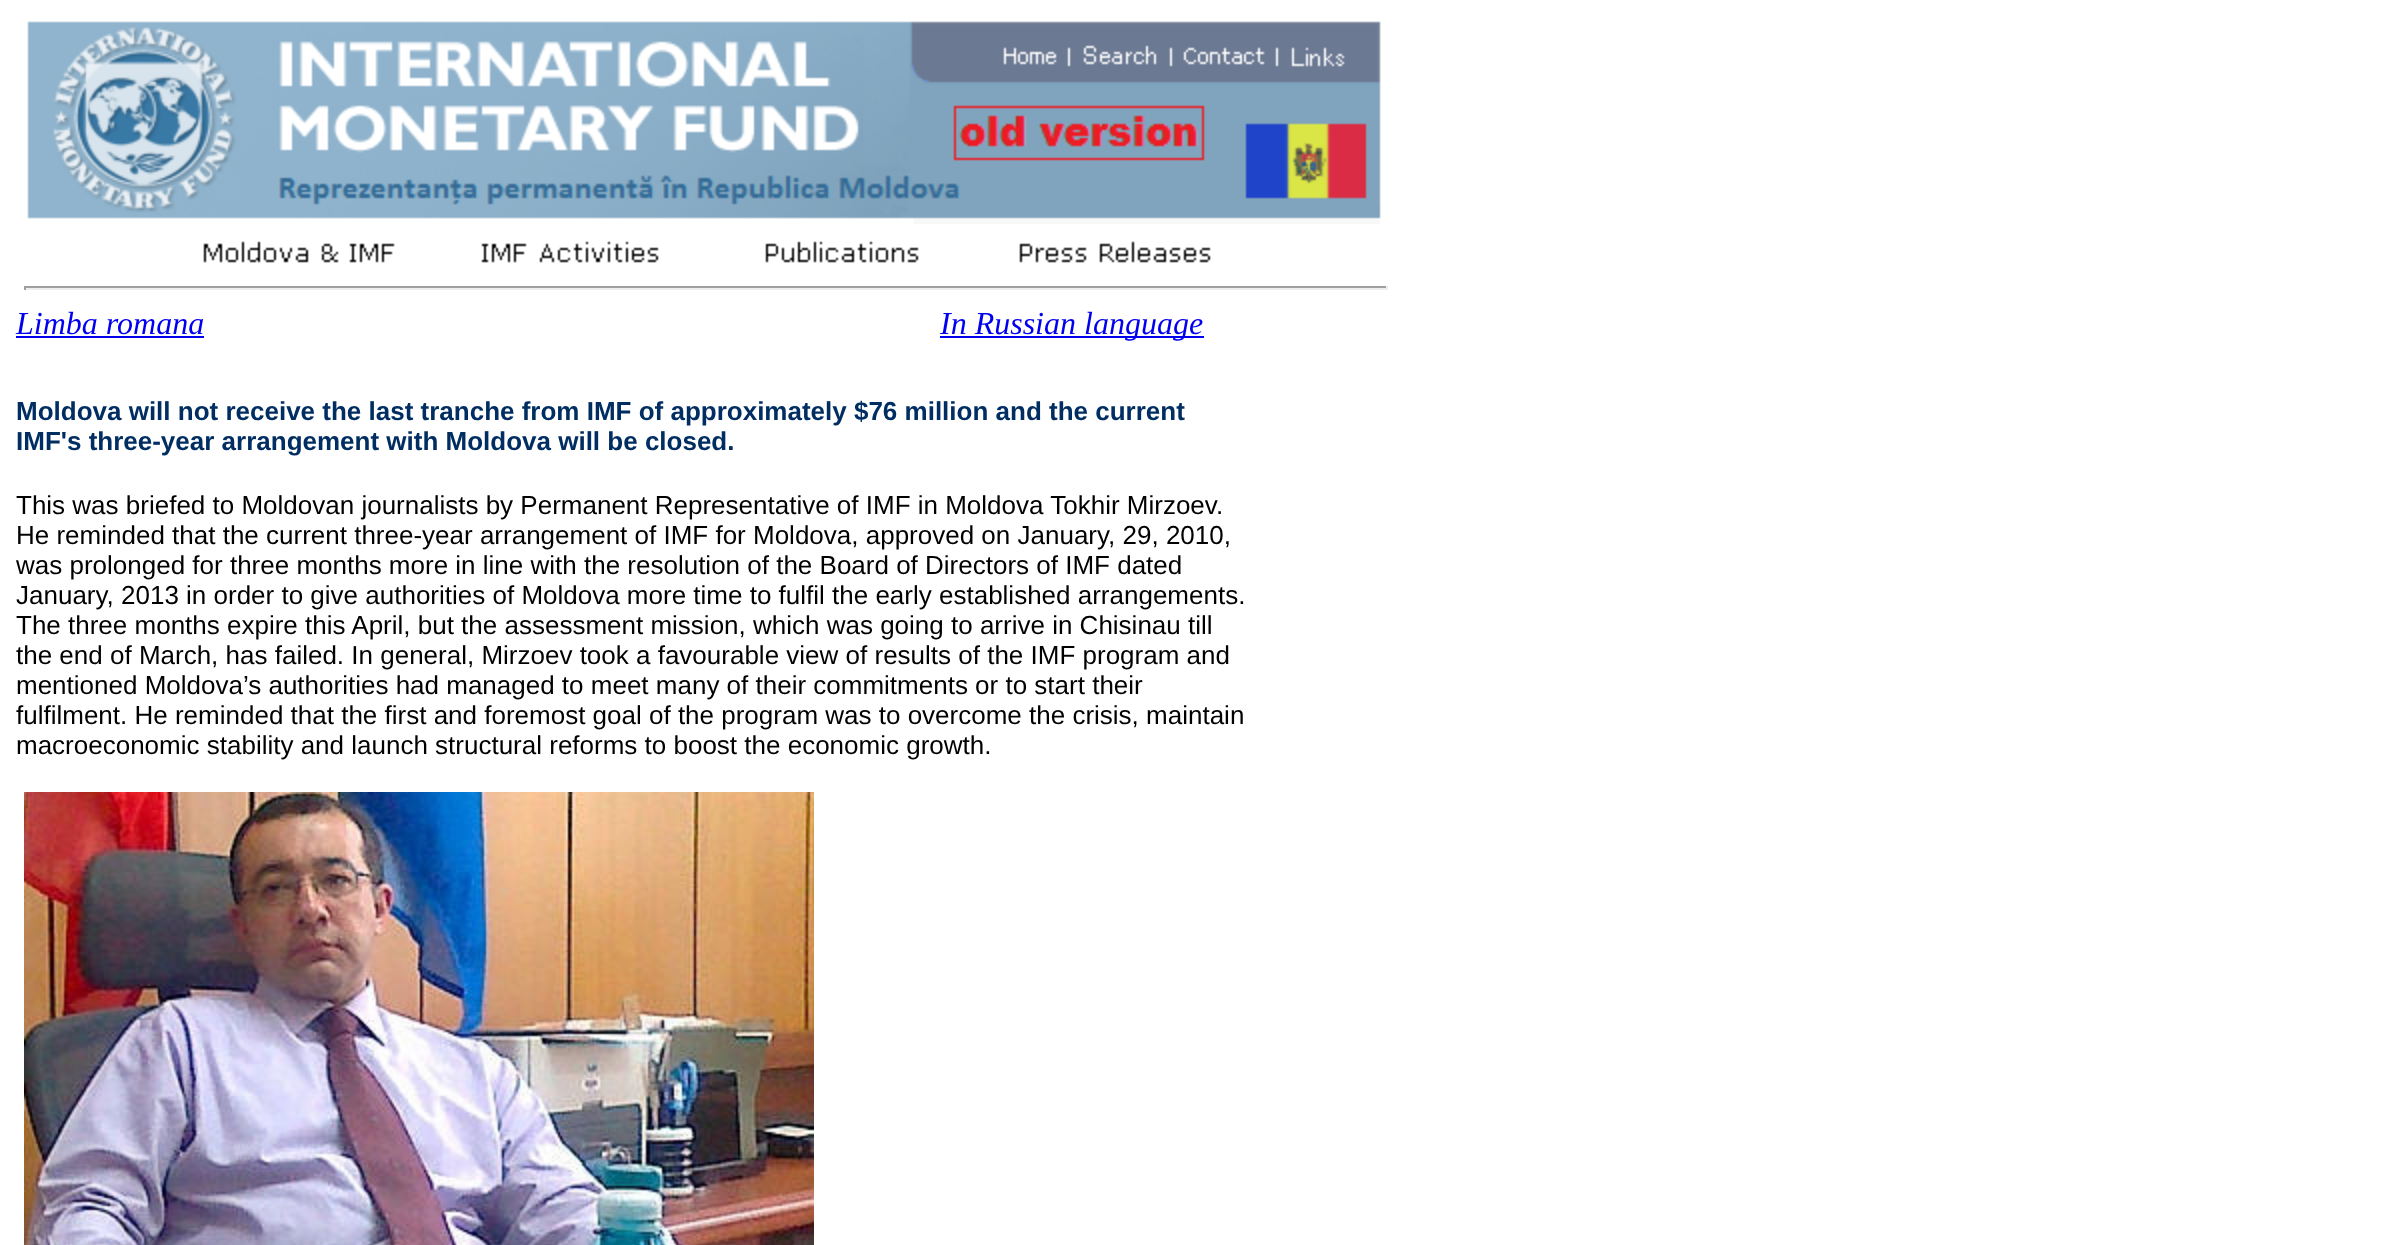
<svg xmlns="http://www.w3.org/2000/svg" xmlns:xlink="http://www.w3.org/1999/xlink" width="2404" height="1245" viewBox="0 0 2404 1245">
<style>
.cls-1{font:italic 32px Liberation Serif;fill:#0000ee}
.cls-2{font:bold 26px Liberation Sans;fill:#002e62}
.cls-3{font:26px Liberation Sans;fill:#000000}
</style>
<rect width="100%" height="100%" fill="#ffffff"/>
<image xlink:href="image0.png" x="27" y="21" width="1354" height="203"/>
<image xlink:href="image1.png" x="203" y="241" width="192" height="22"/>
<image xlink:href="image2.png" x="481" y="241" width="178" height="22"/>
<image xlink:href="image3.png" x="765" y="241" width="154" height="22"/>
<image xlink:href="image4.png" x="1019" y="241" width="192" height="22"/>
<rect fill="#9f9f9f" x="24" y="286" width="1364" height="2"/>
<rect fill="#eeeeee" x="1386" y="286" width="2" height="4"/>
<rect fill="#eeeeee" x="24" y="288" width="1364" height="2"/>
<rect fill="#9f9f9f" x="24" y="286" width="2" height="4"/>
<rect fill="#0000ee" x="16" y="336" width="188" height="2"/>
<rect fill="#0000ee" x="940" y="336" width="264" height="2"/>
<image xlink:href="image5.png" x="24" y="792" width="790" height="453"/>
<text class="cls-1" x="16" y="334">Limba romana</text>
<text class="cls-1" x="940" y="334">In Russian language</text>
<text class="cls-2"><tspan x="16" y="420">Moldova will not receive the last tranche from IMF of approximately $76 million and the current</tspan><tspan x="16" y="450">IMF's three-year arrangement with Moldova will be closed.</tspan></text>
<text class="cls-3"><tspan x="16" y="514">This was briefed to Moldovan journalists by Permanent Representative of IMF in Moldova Tokhir Mirzoev.</tspan><tspan x="16" y="544">He reminded that the current three-year arrangement of IMF for Moldova, approved on January, 29, 2010,</tspan><tspan x="16" y="574">was prolonged for three months more in line with the resolution of the Board of Directors of IMF dated</tspan><tspan x="16" y="604">January, 2013 in order to give authorities of Moldova more time to fulfil the early established arrangements.</tspan><tspan x="16" y="634">The three months expire this April, but the assessment mission, which was going to arrive in Chisinau till</tspan><tspan x="16" y="664">the end of March, has failed. In general, Mirzoev took a favourable view of results of the IMF program and</tspan><tspan x="16" y="694">mentioned Moldova’s authorities had managed to meet many of their commitments or to start their</tspan><tspan x="16" y="724">fulfilment. He reminded that the first and foremost goal of the program was to overcome the crisis, maintain</tspan><tspan x="16" y="754">macroeconomic stability and launch structural reforms to boost the economic growth.</tspan></text>
</svg>
